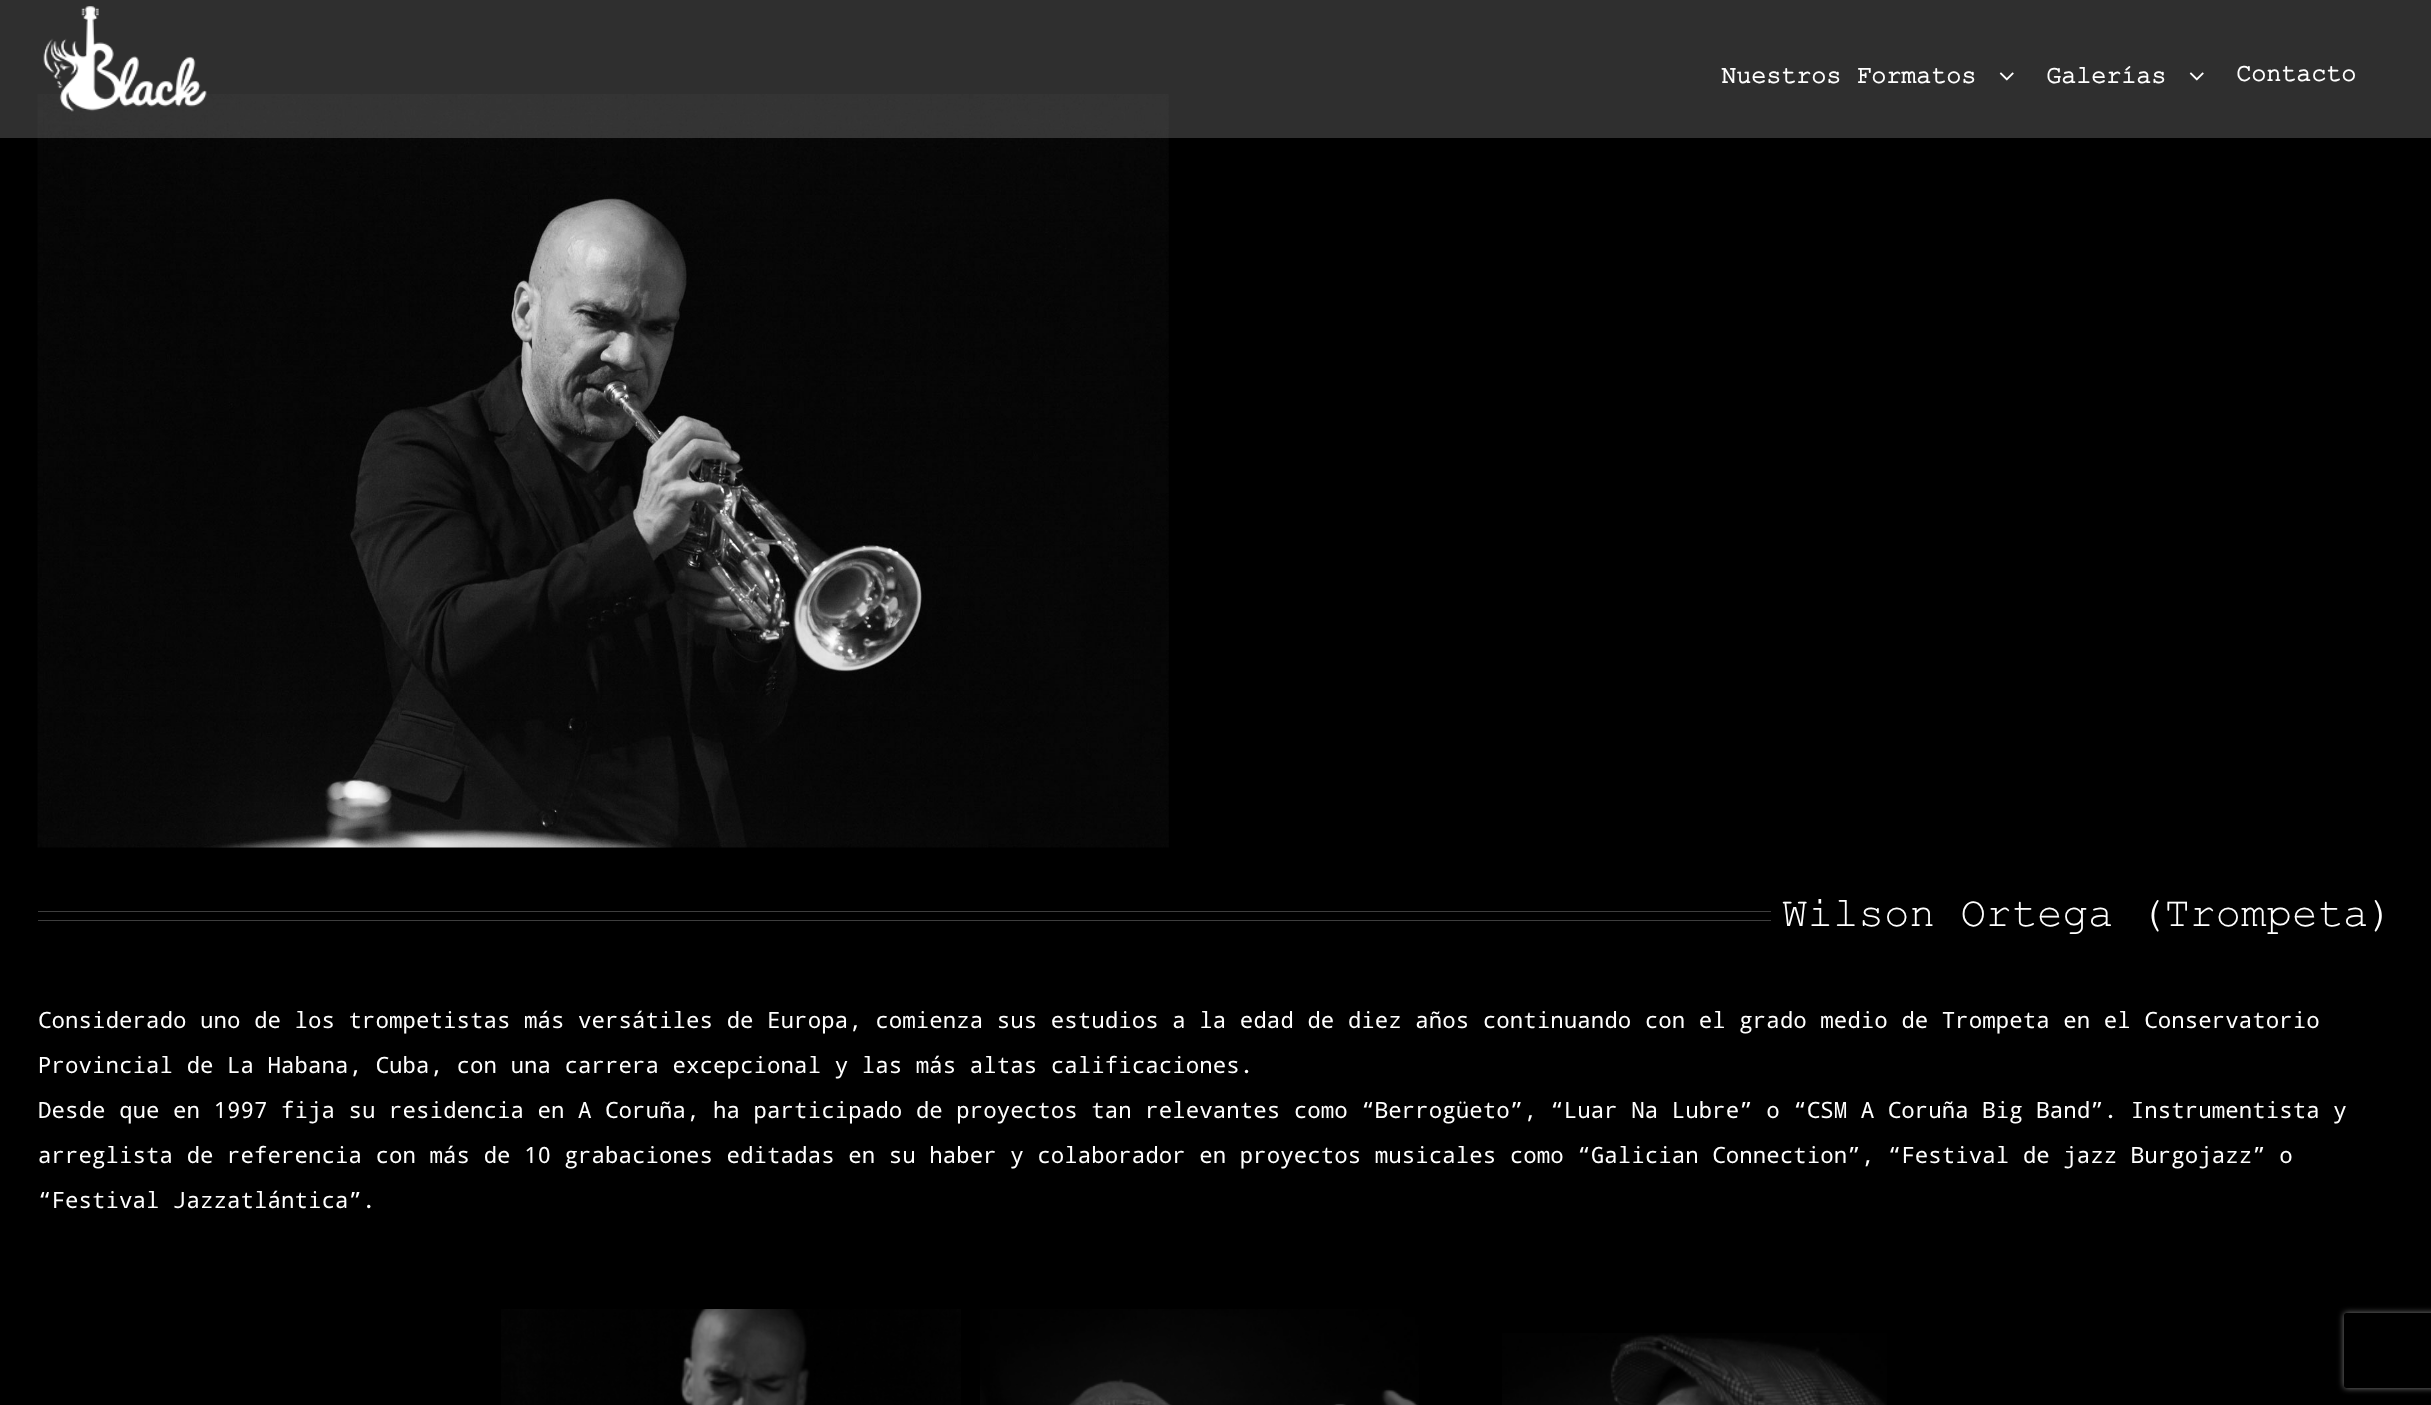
<svg xmlns="http://www.w3.org/2000/svg" xmlns:xlink="http://www.w3.org/1999/xlink" width="2431" height="1405" viewBox="0 0 2431 1405">
<style>
.cls-1{font:bold 25px Courier New;fill:#ffffff}
.cls-2{font:42.5px Courier New;fill:#ffffff}
.cls-3{font:22.5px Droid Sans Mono;fill:#ffffff}
</style>
<defs>
<clipPath id="clip1"><path d="M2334 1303H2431V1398H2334ZM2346.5 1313H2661.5C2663 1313 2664 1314 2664 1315.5V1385.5C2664 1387 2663 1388 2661.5 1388H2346.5C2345 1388 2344 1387 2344 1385.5V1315.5C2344 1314 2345 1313 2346.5 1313Z" clip-rule="evenodd"/></clipPath>
</defs>
<rect width="100%" height="100%" fill="#000000"/>
<image xlink:href="image2.png" x="37" y="94" width="1132" height="754"/>
<rect fill="#aaaaaa" fill-opacity="0.28" x="0" y="0" width="2431" height="138"/>
<image xlink:href="image0.png" x="43" y="6" width="164" height="106"/>
<image xlink:href="image1.png" x="1999" y="72" width="15" height="9"/>
<image xlink:href="image1.png" x="2189" y="72" width="15" height="9"/>
<rect fill="#3e3e3e" x="38" y="911" width="1733" height="1"/>
<rect fill="#3e3e3e" x="38" y="920" width="1733" height="1"/>
<image xlink:href="image3.png" x="501" y="1309" width="460" height="96"/>
<image xlink:href="image4.png" x="980" y="1309" width="439" height="96"/>
<image xlink:href="image5.png" x="1502" y="1333" width="385" height="72"/>
<g clip-path="url(#clip1)">
<rect fill="#808080" filter="blur(3px)" x="2344" y="1313" width="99" height="75" rx="2.5"/>
</g>
<text class="cls-1" x="1721" y="83">Nuestros Formatos</text>
<text class="cls-1" x="2046" y="83">Galerías</text>
<text class="cls-1" x="2236" y="81">Contacto</text>
<text class="cls-2" x="1782" y="926">Wilson Ortega (Trompeta)</text>
<text class="cls-3" x="38" y="1028">Considerado uno de los trompetistas más versátiles de Europa, comienza sus estudios a la edad de diez años continuando con el grado medio de Trompeta en el Conservatorio</text>
<text class="cls-3" x="38" y="1073">Provincial de La Habana, Cuba, con una carrera excepcional y las más altas calificaciones.</text>
<text class="cls-3" x="38" y="1118">Desde que en 1997 fija su residencia en A Coruña, ha participado de proyectos tan relevantes como “Berrogüeto”, “Luar Na Lubre” o “CSM A Coruña Big Band”. Instrumentista y</text>
<text class="cls-3" x="38" y="1163">arreglista de referencia con más de 10 grabaciones editadas en su haber y colaborador en proyectos musicales como “Galician Connection”, “Festival de jazz Burgojazz” o</text>
<text class="cls-3" x="38" y="1208">“Festival Jazzatlántica”.</text>
</svg>
